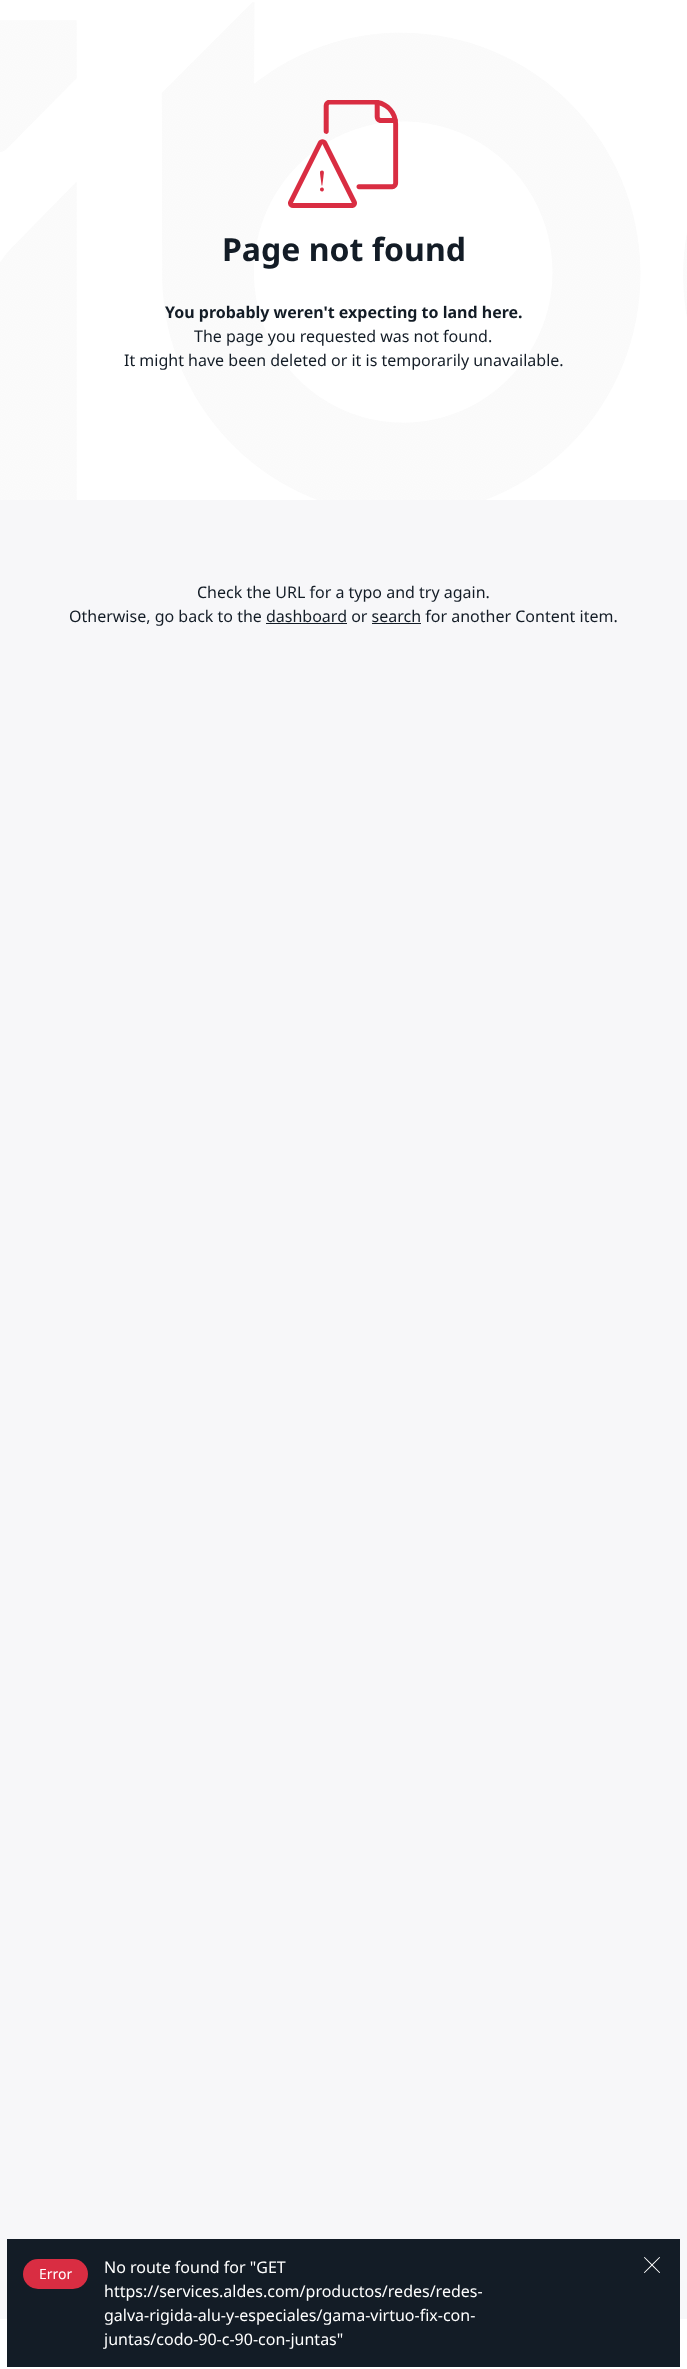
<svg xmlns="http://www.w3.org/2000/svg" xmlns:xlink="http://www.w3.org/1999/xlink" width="687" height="2369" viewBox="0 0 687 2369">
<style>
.cls-1{font:bold 32px Noto Sans;fill:#131c26}
.cls-2{font:bold 16px Noto Sans;fill:#131c26}
.cls-3{font:16px Noto Sans;fill:#131c26}
.cls-4{font:14px Noto Sans;fill:#ffffff}
.cls-5{font:16px Noto Sans;fill:#ffffff}
</style>
<rect width="100%" height="100%" fill="#f7f7f9"/>
<rect fill="#ffffff" x="0" y="0" width="687" height="500"/>
<image xlink:href="image0.png" x="0" y="2" width="687" height="498"/>
<image xlink:href="image1.png" x="288" y="100" width="111" height="108"/>
<rect fill="#131c26" x="266" y="623" width="81" height="1"/>
<rect fill="#131c26" x="372" y="623" width="49" height="1"/>
<rect fill="#ffffff" x="0" y="2319" width="687" height="50"/>
<rect fill="#131c26" x="7" y="2239" width="673" height="128"/>
<rect fill="#d92d42" x="23" y="2259" width="65" height="30" rx="15"/>
<image xlink:href="image2.png" x="644" y="2257" width="16" height="16"/>
<text class="cls-1" x="222" y="261">Page not found</text>
<text class="cls-2" x="165" y="318">You probably weren't expecting to land here.</text>
<text class="cls-3" x="194" y="342">The page you requested was not found.</text>
<text class="cls-3" x="124" y="366">It might have been deleted or it is temporarily unavailable.</text>
<text class="cls-3" x="197" y="598">Check the URL for a typo and try again.</text>
<text class="cls-3" x="69" y="622">Otherwise, go back to the dashboard or search for another Content item.</text>
<text class="cls-4" x="39" y="2279">Error</text>
<text class="cls-5"><tspan x="104" y="2273">No route found for "GET</tspan><tspan x="104" y="2297">https://services.aldes.com/productos/redes/redes-</tspan><tspan x="104" y="2321">galva-rigida-alu-y-especiales/gama-virtuo-fix-con-</tspan><tspan x="104" y="2345">juntas/codo-90-c-90-con-juntas"</tspan></text>
</svg>
